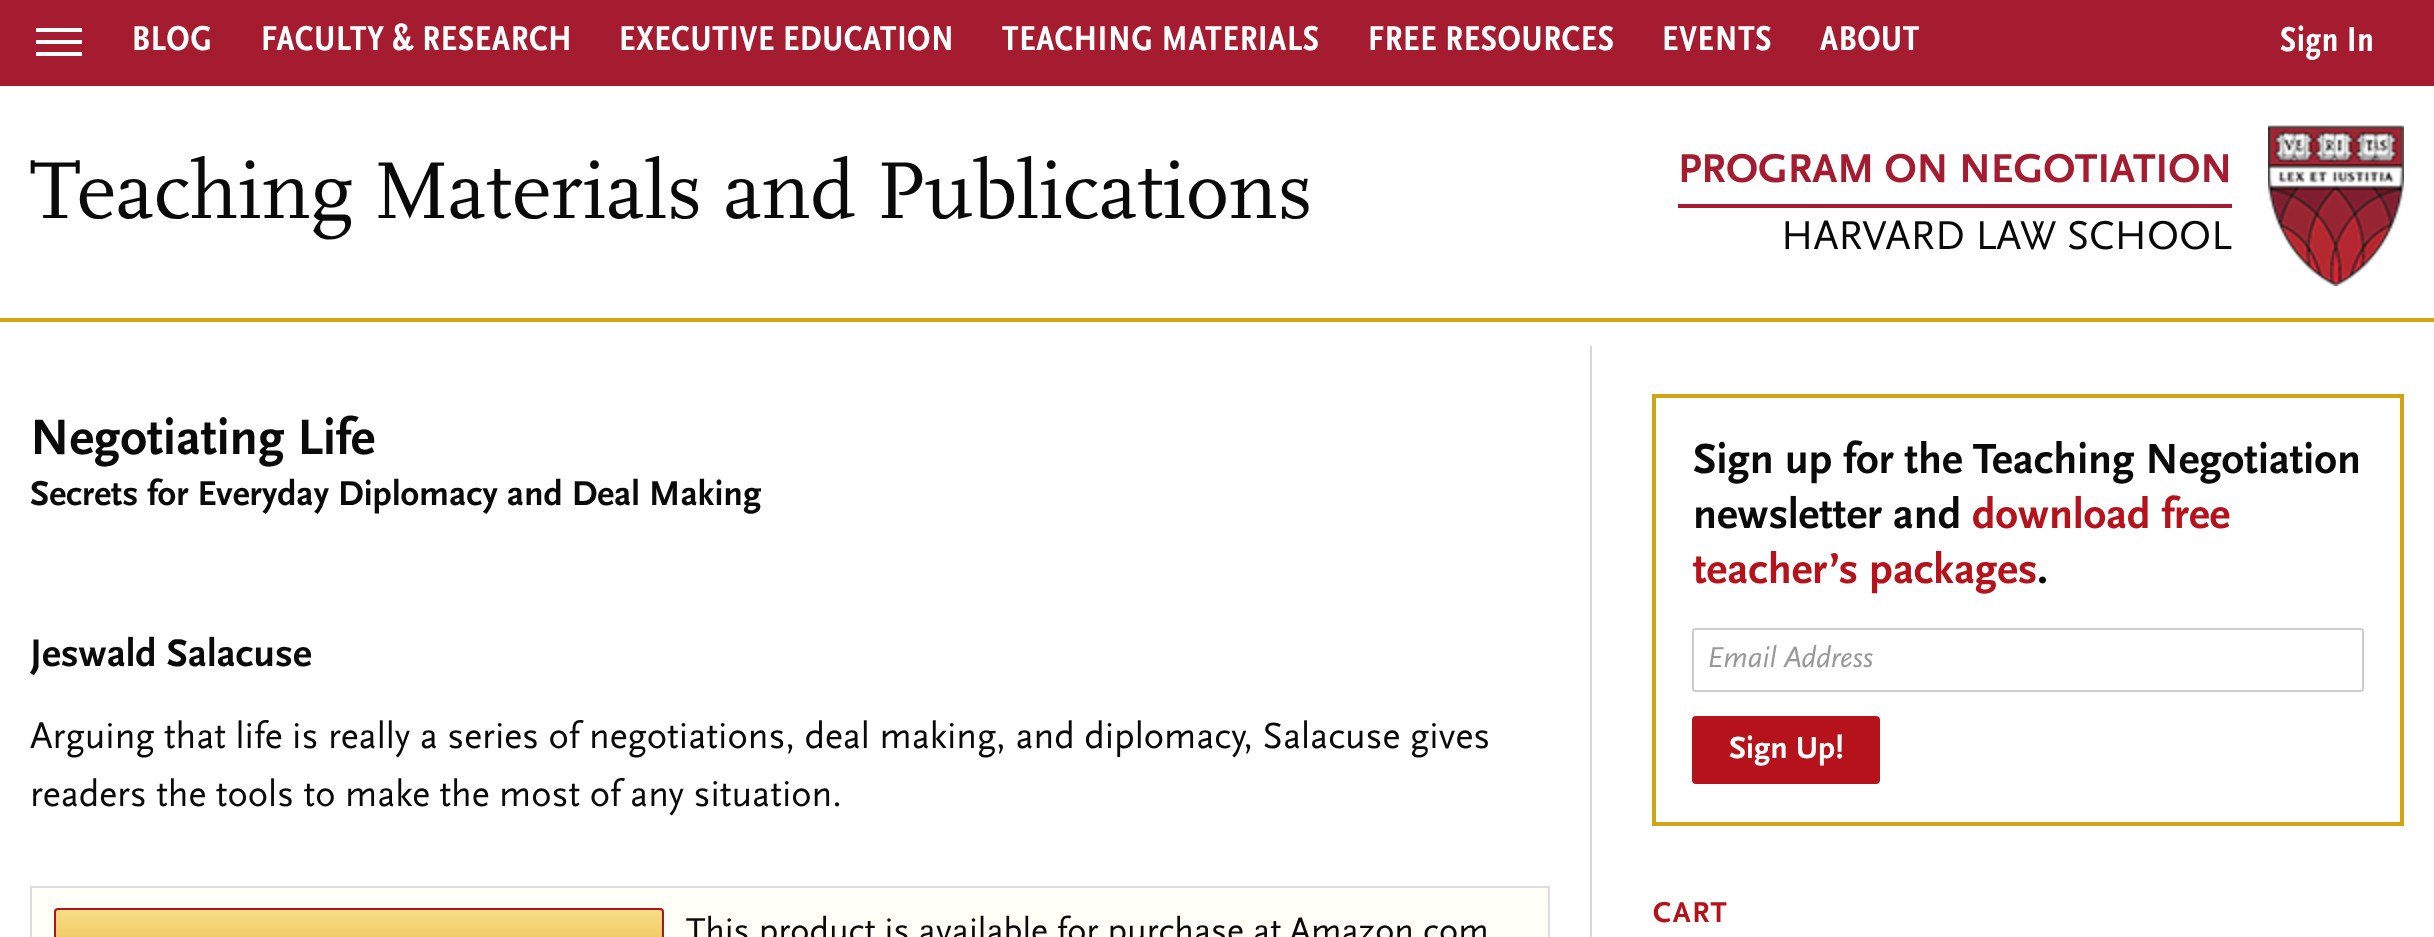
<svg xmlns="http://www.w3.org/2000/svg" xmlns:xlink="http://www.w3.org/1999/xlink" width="2434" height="937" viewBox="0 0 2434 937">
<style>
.cls-1{font:bold 36px 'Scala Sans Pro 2';letter-spacing:0.75px;fill:#ffffff}
.cls-2{font:84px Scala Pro;fill:#0a0a0a}
.cls-3{font:bold 42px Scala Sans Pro;fill:#a51c30}
.cls-4{font:42px Scala Sans Pro;fill:#0a0a0a}
.cls-5{font:bold 52px Scala Sans Pro;fill:#0a0a0a}
.cls-6{font:bold 36px Scala Sans Pro;fill:#0a0a0a}
.cls-7{font:bold 40px Scala Sans Pro;fill:#0a0a0a}
.cls-8{font:38px Scala Sans Pro;fill:#0a0a0a}
.cls-9{font:36px Scala Sans Pro;fill:#0a0a0a}
.cls-10{font:bold 44px Scala Sans Pro;fill:#0a0a0a}
.cls-11{font:bold 44px Scala Sans Pro;fill:#b5121b}
.cls-12{font:italic 30px Scala Sans Pro;fill:#999999}
.cls-13{font:bold 32px Scala Sans Pro;fill:#ffffff}
.cls-14{font:bold 30px Scala Sans Pro;letter-spacing:1.5px;fill:#b5121b}
</style>
<defs>
<linearGradient id="g1" gradientUnits="userSpaceOnUse" x1="359" y1="910" x2="359" y2="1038"><stop offset="0" stop-color="#f7de84"/><stop offset="1" stop-color="#dd8506"/></linearGradient>
</defs>
<rect width="100%" height="100%" fill="#ffffff"/>
<rect fill="#a51c30" x="0" y="0" width="2434" height="86"/>
<rect fill="#ffffff" x="36" y="52" width="46" height="4"/>
<rect fill="#ffffff" x="36" y="40" width="46" height="4"/>
<rect fill="#ffffff" x="36" y="28" width="46" height="4"/>
<rect fill="#a51c30" x="1678" y="204" width="554" height="4"/>
<image xlink:href="image0.png" x="2268" y="125" width="136" height="161"/>
<rect fill="#d5a414" x="0" y="318" width="2434" height="4"/>
<rect fill="#d6d6d6" x="1590" y="346" width="2" height="591"/>
<rect fill="#fffff7" stroke="#dddddd" stroke-width="2" x="31" y="887" width="1518" height="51"/>
<rect fill="url(#g1)" x="54" y="910" width="610" height="27"/>
<rect fill="none" stroke="#b5121b" stroke-width="2" x="55" y="909" width="608" height="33" rx="3"/>
<rect fill="none" stroke="#d5a414" stroke-width="4" x="1654" y="396" width="748" height="428"/>
<rect fill="none" stroke="#cccccc" stroke-width="2" x="1693" y="629" width="670" height="62" rx="3"/>
<rect fill="#b5121b" x="1692" y="716" width="188" height="68" rx="4"/>
<text class="cls-1" x="132" y="50">BLOG</text>
<text class="cls-1" x="261" y="50">FACULTY &amp; RESEARCH</text>
<text class="cls-1" x="619" y="50">EXECUTIVE EDUCATION</text>
<text class="cls-1" x="1002" y="50">TEACHING MATERIALS</text>
<text class="cls-1" x="1368" y="50">FREE RESOURCES</text>
<text class="cls-1" x="1662" y="50">EVENTS</text>
<text class="cls-1" x="1820" y="50">ABOUT</text>
<text class="cls-1" x="2280" y="51">Sign In</text>
<text class="cls-2" x="30" y="218">Teaching Materials and Publications</text>
<text class="cls-3" x="1678" y="182">PROGRAM ON NEGOTIATION</text>
<text class="cls-4" x="1781" y="249">HARVARD LAW SCHOOL</text>
<text class="cls-5" x="30" y="454">Negotiating Life</text>
<text class="cls-6" x="30" y="505">Secrets for Everyday Diplomacy and Deal Making</text>
<text class="cls-7" x="30" y="666">Jeswald Salacuse</text>
<text class="cls-8"><tspan x="30" y="748">Arguing that life is really a series of negotiations, deal making, and diplomacy, Salacuse gives</tspan><tspan x="30" y="806">readers the tools to make the most of any situation.</tspan></text>
<text class="cls-9" x="686" y="942">This product is available for purchase at Amazon.com</text>
<text class="cls-10"><tspan x="1693" y="473">Sign up for the Teaching Negotiation</tspan><tspan x="1693" y="528">newsletter and</tspan></text>
<text class="cls-11" x="1972" y="528">download free</text>
<text class="cls-11" x="1693" y="583">teacher’s packages</text>
<text class="cls-10" x="2037" y="583">.</text>
<text class="cls-12" x="1707" y="667">Email Address</text>
<text class="cls-13" x="1729" y="758">Sign Up!</text>
<text class="cls-14" x="1653" y="922">CART</text>
</svg>
